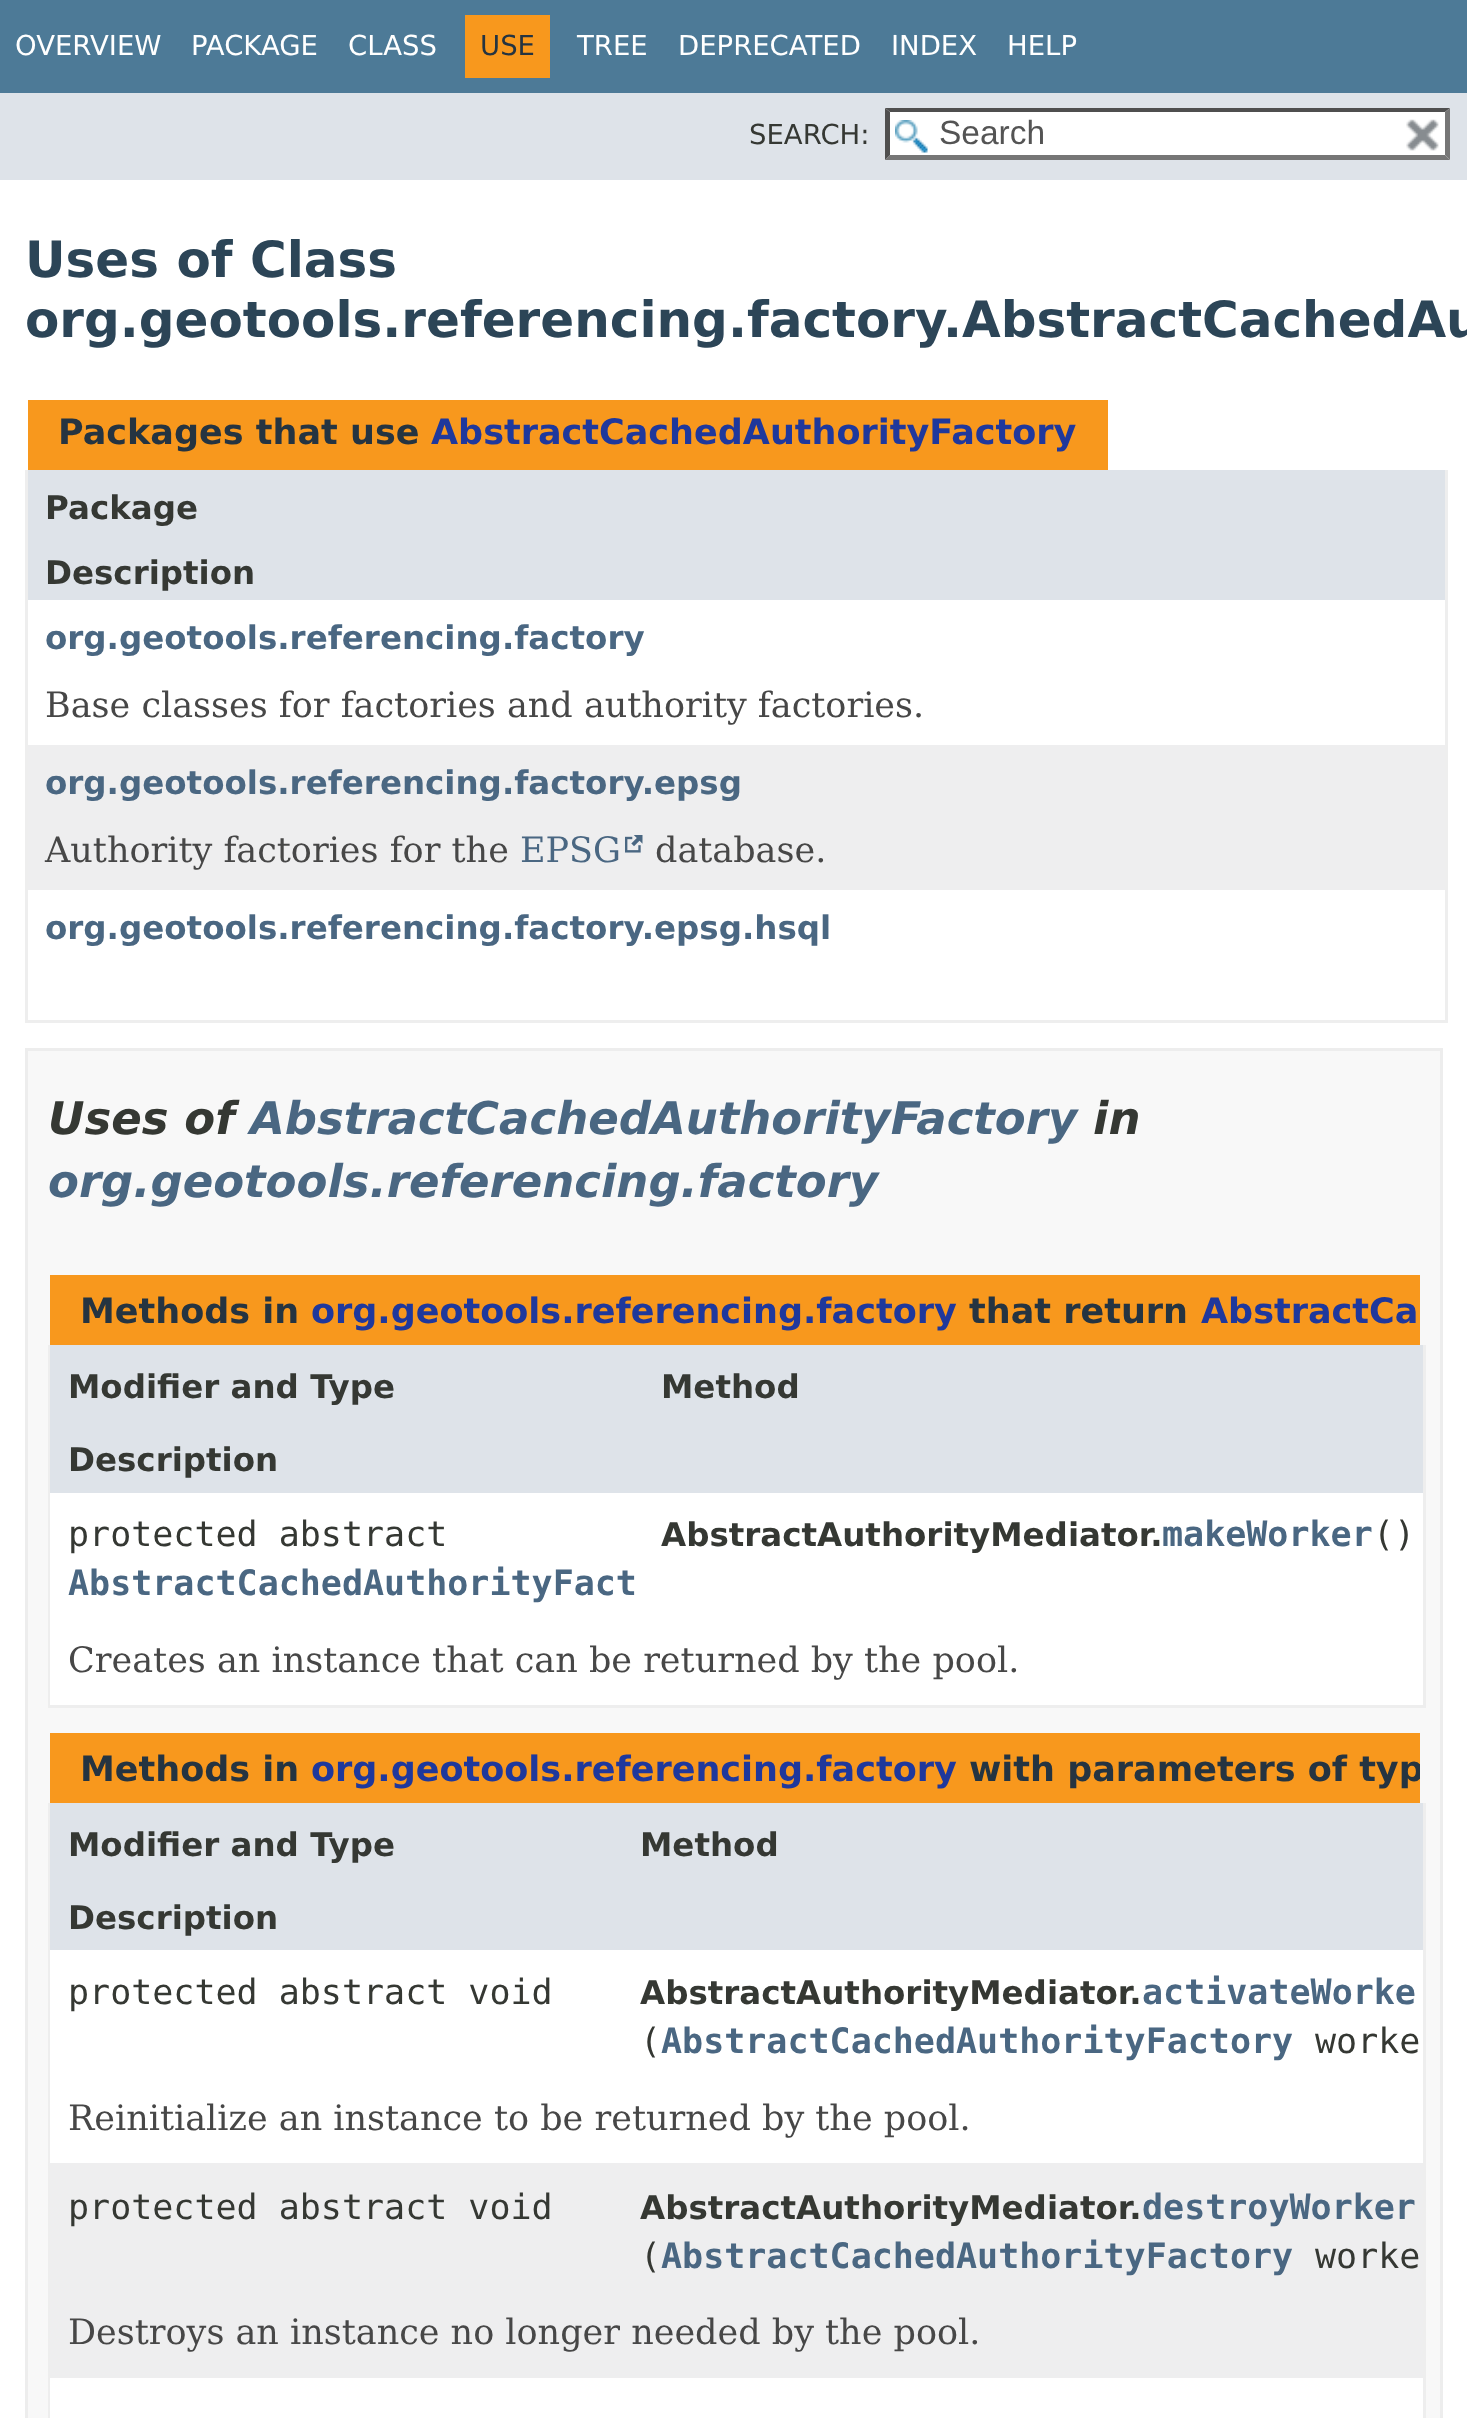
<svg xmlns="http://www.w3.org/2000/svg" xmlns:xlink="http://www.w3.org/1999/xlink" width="1467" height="2418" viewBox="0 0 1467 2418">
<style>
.cls-1{font:27.5px DejaVu Sans;fill:#ffffff}
.cls-2{font:27.5px DejaVu Sans;fill:#253441}
.cls-3{font:27.5px DejaVu Sans;fill:#353833}
.cls-4{font:33.5px Liberation Sans;fill:#545454}
.cls-5{font:bold 50px DejaVu Sans;fill:#2c4557}
.cls-6{font:bold 35px DejaVu Sans;fill:#253441}
.cls-7{font:bold 35px DejaVu Sans;fill:#1f389c}
.cls-8{font:bold 32.5px DejaVu Sans;fill:#353833}
.cls-9{font:bold 32.5px DejaVu Sans;fill:#4a6782}
.cls-10{font:35px DejaVu Serif;fill:#474747}
.cls-11{font:35px DejaVu Serif;fill:#4a6782}
.cls-12{font:italic bold 45px DejaVu Sans;fill:#353833}
.cls-13{font:italic bold 45px DejaVu Sans;fill:#4a6782}
.cls-14{font:35px DejaVu Sans Mono;fill:#353833}
.cls-15{font:bold 35px DejaVu Sans Mono;fill:#4a6782}
</style>
<defs>
<clipPath id="clip1"><rect x="48" y="1708" width="1372" height="95"/></clipPath>
</defs>
<rect width="100%" height="100%" fill="#ffffff"/>
<rect fill="#4d7a97" x="0" y="0" width="1467" height="93"/>
<rect fill="#f8981d" x="465" y="15" width="85" height="63"/>
<rect fill="#dee3e9" x="0" y="93" width="1467" height="87"/>
<rect fill="#ffffff" x="885" y="108" width="565" height="52"/>
<image xlink:href="image0.png" x="895" y="120" width="33" height="33"/>
<path fill="#4f4f4f" d="M885 108H1450L1445 112H890Z"/>
<path fill="#767676" d="M1450 108V160L1445 155V112Z"/>
<path fill="#767676" d="M1450 160H885L890 155H1445Z"/>
<path fill="#4f4f4f" d="M885 160V108L890 112V155Z"/>
<image xlink:href="image1.png" x="1406" y="119" width="33" height="32"/>
<rect fill="#f8981d" x="28" y="400" width="1080" height="70"/>
<rect fill="#eeeeee" x="1445" y="470" width="3" height="553"/>
<rect fill="#eeeeee" x="25" y="1020" width="1423" height="3"/>
<rect fill="#eeeeee" x="25" y="470" width="3" height="553"/>
<rect fill="#dee3e9" x="28" y="470" width="1417" height="130"/>
<rect fill="#eeeeef" x="28" y="745" width="1417" height="145"/>
<image xlink:href="image2.png" x="625" y="835" width="18" height="18"/>
<rect fill="#f8f8f8" stroke="#ededed" stroke-width="3" x="26.5" y="1049.5" width="1415" height="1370"/>
<rect fill="#f8981d" x="50" y="1275" width="1370" height="70"/>
<rect fill="#eeeeee" x="1423" y="1345" width="3" height="363"/>
<rect fill="#eeeeee" x="48" y="1705" width="1377" height="3"/>
<rect fill="#eeeeee" x="48" y="1345" width="3" height="363"/>
<rect fill="#dee3e9" x="50" y="1345" width="1373" height="73"/>
<rect fill="#dee3e9" x="50" y="1418" width="1373" height="75"/>
<rect fill="#ffffff" x="50" y="1493" width="1373" height="125"/>
<rect fill="#ffffff" x="50" y="1618" width="1373" height="87"/>
<rect fill="#f8981d" x="50" y="1733" width="1370" height="70"/>
<rect fill="#eeeeee" x="1423" y="1803" width="3" height="615"/>
<rect fill="#eeeeee" x="48" y="1803" width="2" height="615"/>
<rect fill="#dee3e9" x="50" y="1803" width="1373" height="75"/>
<rect fill="#dee3e9" x="50" y="1878" width="1373" height="72"/>
<rect fill="#ffffff" x="50" y="1950" width="1373" height="125"/>
<rect fill="#ffffff" x="50" y="2075" width="1373" height="88"/>
<rect fill="#eeeeef" x="50" y="2163" width="1373" height="127"/>
<rect fill="#eeeeef" x="50" y="2290" width="1373" height="88"/>
<rect fill="#ffffff" x="50" y="2378" width="1373" height="40"/>
<text class="cls-1" x="15" y="55">OVERVIEW</text>
<text class="cls-1" x="191" y="55">PACKAGE</text>
<text class="cls-1" x="348" y="55">CLASS</text>
<text class="cls-2" x="480" y="55">USE</text>
<text class="cls-1" x="577" y="55">TREE</text>
<text class="cls-1" x="678" y="55">DEPRECATED</text>
<text class="cls-1" x="891" y="55">INDEX</text>
<text class="cls-1" x="1007" y="55">HELP</text>
<text class="cls-3" x="749" y="144">SEARCH:</text>
<text class="cls-4" x="939" y="144">Search</text>
<text class="cls-5"><tspan x="25" y="277">Uses of Class</tspan><tspan x="25" y="337">org.geotools.referencing.factory.AbstractCachedAu</tspan></text>
<text class="cls-6" x="58" y="444">Packages that use</text>
<text class="cls-7" x="431" y="444">AbstractCachedAuthorityFactory</text>
<text class="cls-8" x="45" y="519">Package</text>
<text class="cls-8" x="45" y="584">Description</text>
<text class="cls-9" x="45" y="649">org.geotools.referencing.factory</text>
<text class="cls-10" x="45" y="717">Base classes for factories and authority factories.</text>
<text class="cls-9" x="45" y="794">org.geotools.referencing.factory.epsg</text>
<text class="cls-10" x="45" y="862">Authority factories for the</text>
<text class="cls-11" x="520" y="862">EPSG</text>
<text class="cls-10" x="655" y="862">database.</text>
<text class="cls-9" x="45" y="939">org.geotools.referencing.factory.epsg.hsql</text>
<text class="cls-12" x="48" y="1134">Uses of</text>
<text class="cls-13" x="250" y="1134">AbstractCachedAuthorityFactory</text>
<text class="cls-12" x="1093" y="1134">in</text>
<text class="cls-13" x="48" y="1197">org.geotools.referencing.factory</text>
<text class="cls-6" x="80" y="1323">Methods in</text>
<text class="cls-7" x="311" y="1323">org.geotools.referencing.factory</text>
<text class="cls-6" x="969" y="1323">that return</text>
<text class="cls-7" x="1201" y="1323">AbstractCa</text>
<text class="cls-8" x="68" y="1398">Modifier and Type</text>
<text class="cls-8" x="661" y="1398">Method</text>
<text class="cls-8" x="68" y="1471">Description</text>
<text class="cls-14" x="68" y="1546">protected abstract</text>
<text class="cls-15" x="68" y="1595">AbstractCachedAuthorityFact</text>
<text class="cls-8" x="661" y="1546">AbstractAuthorityMediator.</text>
<text class="cls-15" x="1162" y="1546">makeWorker</text>
<text class="cls-14" x="1373" y="1546">()</text>
<text class="cls-10" x="68" y="1672">Creates an instance that can be returned by the pool.</text>
<text class="cls-6" x="80" y="1781">Methods in</text>
<text class="cls-7" x="311" y="1781">org.geotools.referencing.factory</text>
<g clip-path="url(#clip1)">
<text class="cls-6" x="969" y="1781">with parameters of typ</text>
</g>
<text class="cls-8" x="68" y="1856">Modifier and Type</text>
<text class="cls-8" x="640" y="1856">Method</text>
<text class="cls-8" x="68" y="1929">Description</text>
<text class="cls-14" x="68" y="2004">protected abstract void</text>
<text class="cls-8" x="640" y="2004">AbstractAuthorityMediator.</text>
<text class="cls-15" x="1142" y="2004">activateWorke</text>
<text class="cls-14" x="640" y="2053">(</text>
<text class="cls-15" x="661" y="2053">AbstractCachedAuthorityFactory</text>
<text class="cls-14" x="1315" y="2053">worke</text>
<text class="cls-10" x="68" y="2130">Reinitialize an instance to be returned by the pool.</text>
<text class="cls-14" x="68" y="2219">protected abstract void</text>
<text class="cls-8" x="640" y="2219">AbstractAuthorityMediator.</text>
<text class="cls-15" x="1142" y="2219">destroyWorker</text>
<text class="cls-14" x="640" y="2268">(</text>
<text class="cls-15" x="661" y="2268">AbstractCachedAuthorityFactory</text>
<text class="cls-14" x="1315" y="2268">worke</text>
<text class="cls-10" x="68" y="2344">Destroys an instance no longer needed by the pool.</text>
</svg>
